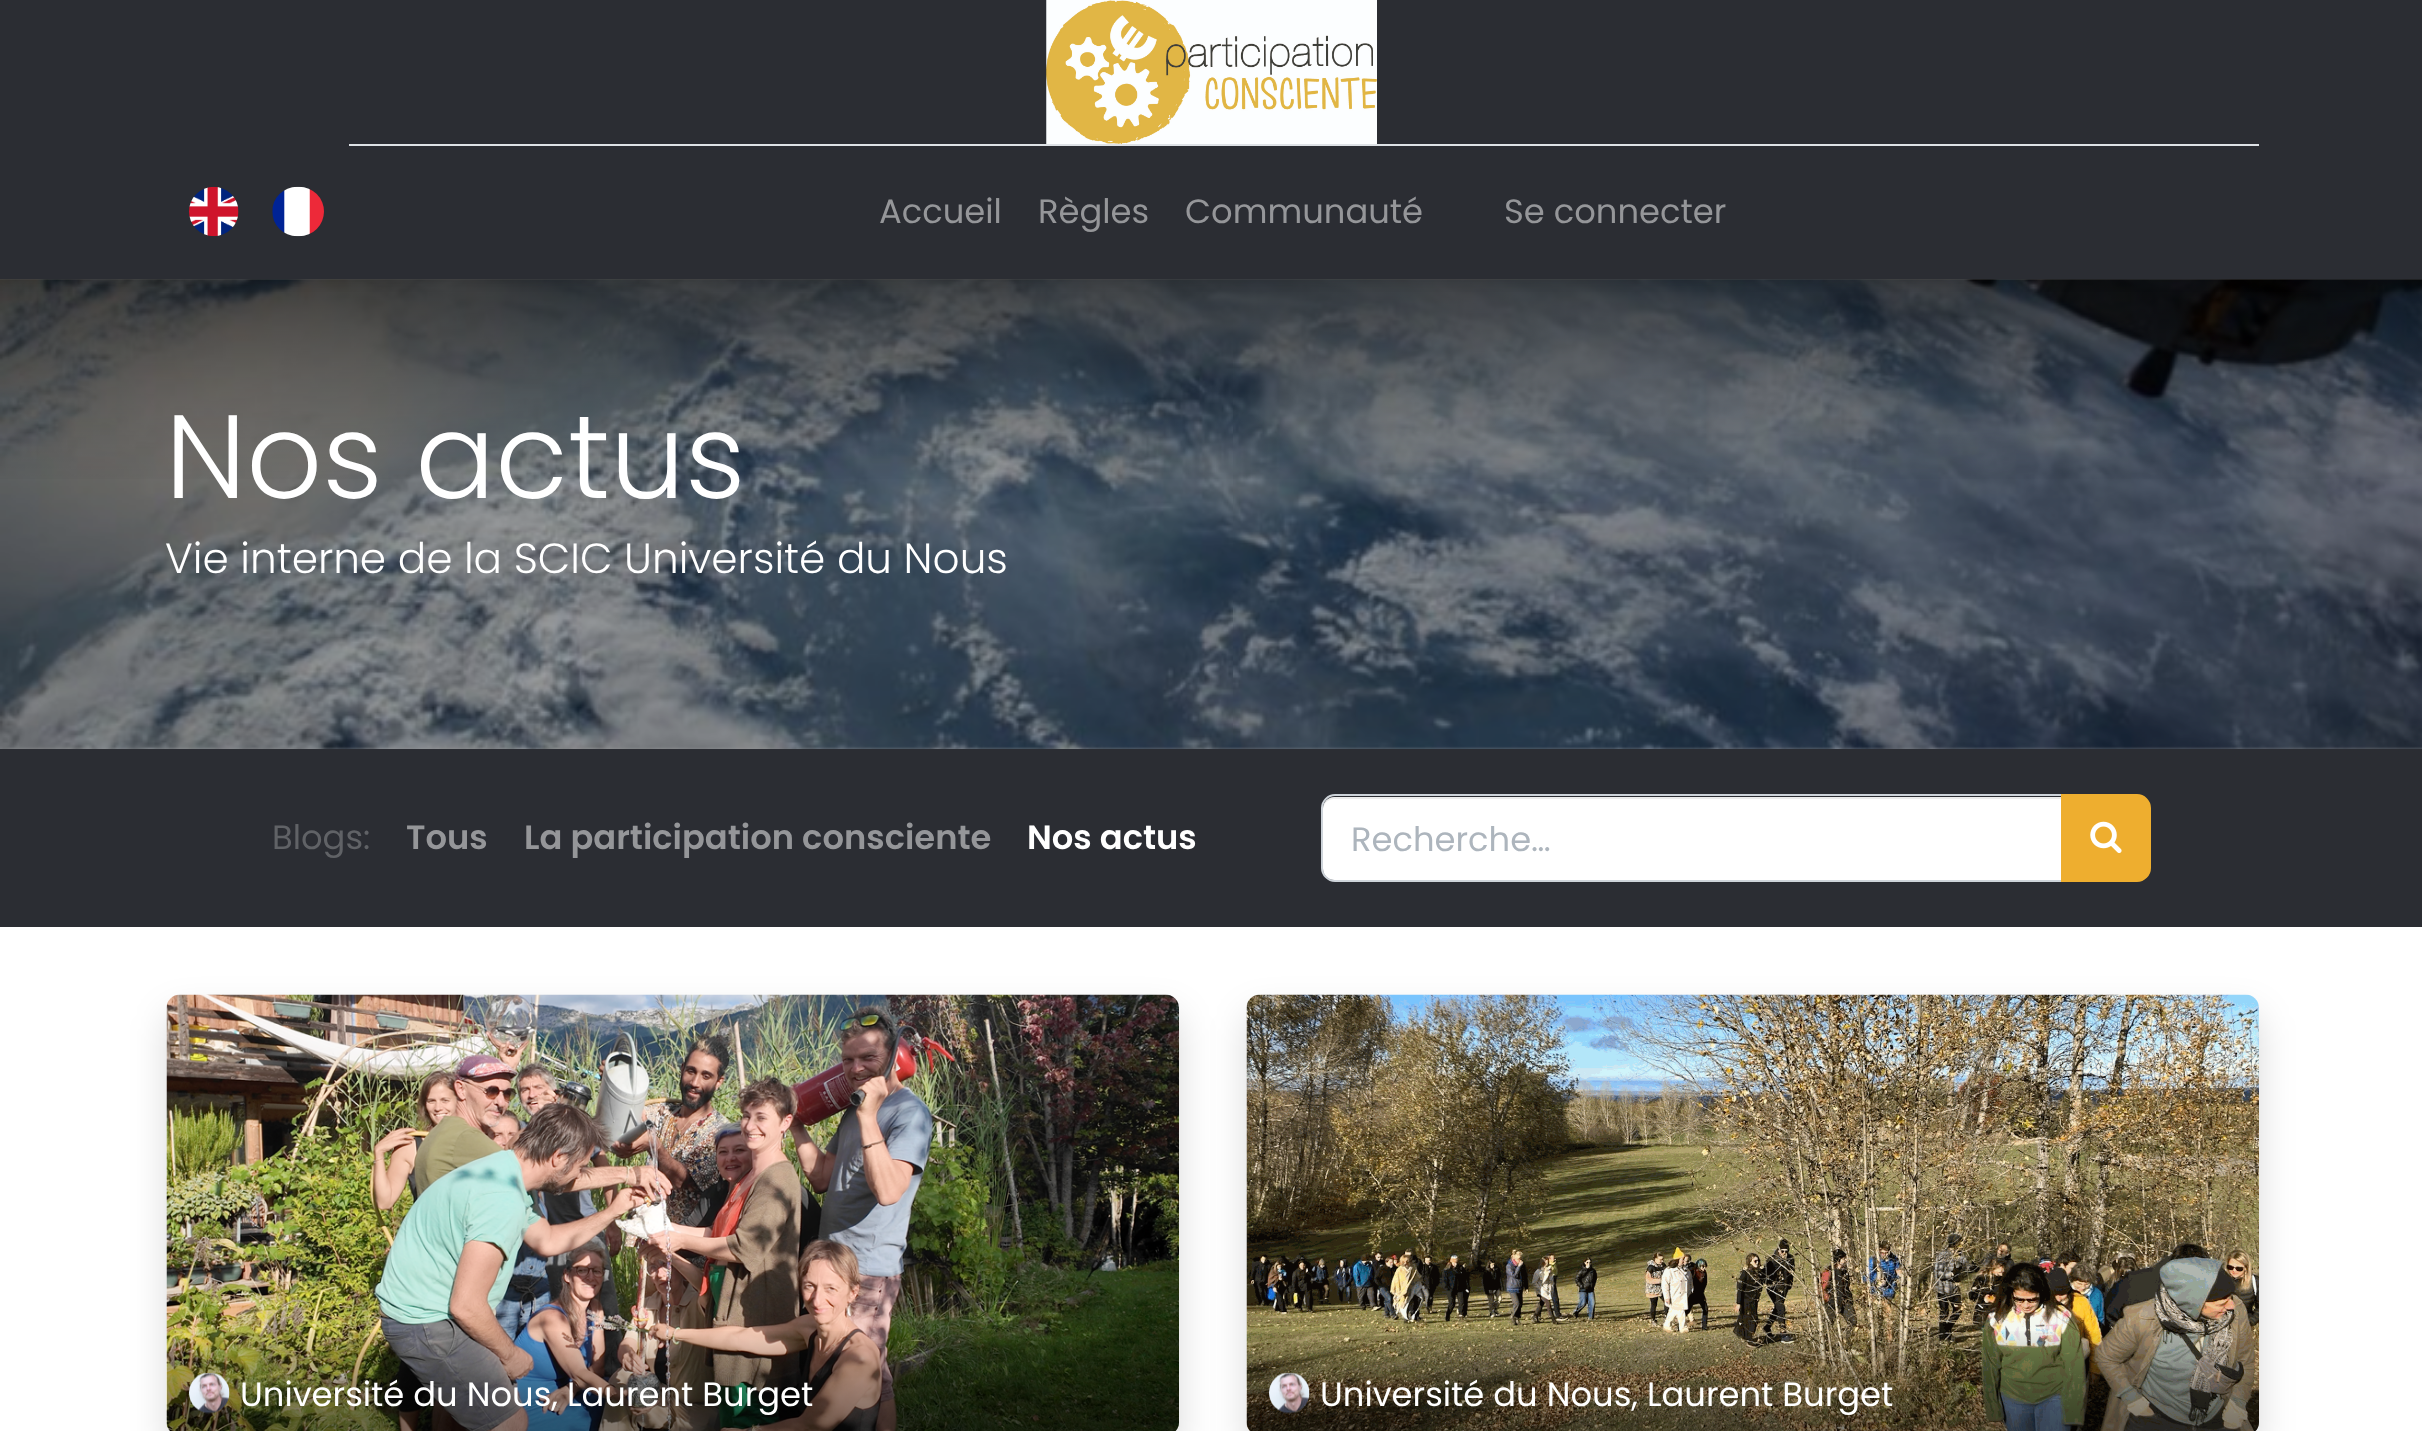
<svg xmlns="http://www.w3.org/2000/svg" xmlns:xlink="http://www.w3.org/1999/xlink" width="2422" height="1431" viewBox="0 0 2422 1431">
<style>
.cls-1{font:33.75px Poppins;fill:#959699}
.cls-2{font:300 118.5px Poppins;fill:#ffffff}
.cls-3{font:300 42.2px Poppins;fill:#ffffff}
.cls-4{font:33.75px Poppins;fill:#606266}
.cls-5{font:600 33.75px Poppins;fill:#959699}
.cls-6{font:600 33.75px Poppins;fill:#ffffff}
.cls-7{font:33.75px Poppins;fill:#adb5bd}
.cls-8{font:33.75px Poppins;fill:#ffffff}
</style>
<defs>
<linearGradient id="g1" gradientUnits="userSpaceOnUse" x1="1212" y1="279" x2="1212" y2="513"><stop offset="0" stop-color="#000000" stop-opacity="0.5"/><stop offset="0.19" stop-color="#000000" stop-opacity="0.37"/><stop offset="0.34" stop-color="#000000" stop-opacity="0.27"/><stop offset="0.47" stop-color="#000000" stop-opacity="0.19"/><stop offset="0.56" stop-color="#000000" stop-opacity="0.14"/><stop offset="0.65" stop-color="#000000" stop-opacity="0.1"/><stop offset="0.73" stop-color="#000000" stop-opacity="0.06"/><stop offset="0.8" stop-color="#000000" stop-opacity="0.04"/><stop offset="0.86" stop-color="#000000" stop-opacity="0.02"/><stop offset="0.91" stop-color="#000000" stop-opacity="0.01"/><stop offset="0.95" stop-color="#000000" stop-opacity="0"/><stop offset="0.98" stop-color="#000000" stop-opacity="0"/><stop offset="1" stop-color="#000000" stop-opacity="0"/></linearGradient>
<clipPath id="clip1"><rect x="167" y="995" width="1012" height="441" rx="14"/></clipPath>
<linearGradient id="g2" gradientUnits="userSpaceOnUse" x1="673" y1="1328" x2="673" y2="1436"><stop offset="0" stop-color="#000000" stop-opacity="0"/><stop offset="0.19" stop-color="#000000" stop-opacity="0.13"/><stop offset="0.34" stop-color="#000000" stop-opacity="0.23"/><stop offset="0.47" stop-color="#000000" stop-opacity="0.31"/><stop offset="0.56" stop-color="#000000" stop-opacity="0.36"/><stop offset="0.65" stop-color="#000000" stop-opacity="0.4"/><stop offset="0.73" stop-color="#000000" stop-opacity="0.43"/><stop offset="0.8" stop-color="#000000" stop-opacity="0.46"/><stop offset="0.86" stop-color="#000000" stop-opacity="0.48"/><stop offset="0.91" stop-color="#000000" stop-opacity="0.49"/><stop offset="0.95" stop-color="#000000" stop-opacity="0.49"/><stop offset="0.98" stop-color="#000000" stop-opacity="0.5"/><stop offset="1" stop-color="#000000" stop-opacity="0.5"/></linearGradient>
<clipPath id="clip2"><rect x="1247" y="995" width="1012" height="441" rx="14"/></clipPath>
<linearGradient id="g3" gradientUnits="userSpaceOnUse" x1="1753" y1="1328" x2="1753" y2="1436"><stop offset="0" stop-color="#000000" stop-opacity="0"/><stop offset="0.19" stop-color="#000000" stop-opacity="0.13"/><stop offset="0.34" stop-color="#000000" stop-opacity="0.23"/><stop offset="0.47" stop-color="#000000" stop-opacity="0.31"/><stop offset="0.56" stop-color="#000000" stop-opacity="0.36"/><stop offset="0.65" stop-color="#000000" stop-opacity="0.4"/><stop offset="0.73" stop-color="#000000" stop-opacity="0.43"/><stop offset="0.8" stop-color="#000000" stop-opacity="0.46"/><stop offset="0.86" stop-color="#000000" stop-opacity="0.48"/><stop offset="0.91" stop-color="#000000" stop-opacity="0.49"/><stop offset="0.95" stop-color="#000000" stop-opacity="0.49"/><stop offset="0.98" stop-color="#000000" stop-opacity="0.5"/><stop offset="1" stop-color="#000000" stop-opacity="0.5"/></linearGradient>
</defs>
<rect width="100%" height="100%" fill="#ffffff"/>
<rect fill="#a3a3a3" x="0" y="279" width="2422" height="470"/>
<image xlink:href="image3.png" x="0" y="279" width="2422" height="470"/>
<rect fill="url(#g1)" x="0" y="279" width="2422" height="200"/>
<rect fill="#000000" fill-opacity="0.07" filter="blur(4.5px)" x="0" y="5" width="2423" height="279"/>
<rect fill="#2b2d33" x="0" y="0" width="2422" height="279"/>
<image xlink:href="image0.png" x="1046" y="0" width="331" height="144"/>
<image xlink:href="image1.png" x="189" y="186" width="50" height="51"/>
<image xlink:href="image2.png" x="272" y="186" width="52" height="51"/>
<rect fill="#dee2e6" x="349" y="144" width="1910" height="2"/>
<rect fill="#2b2d33" x="0" y="749" width="2422" height="178"/>
<path fill="#ffffff" d="M1334 797H2061V880H1334C1328 880 1323 875 1323 869V808C1323 802 1328 797 1334 797Z"/>
<path fill="#000000" fill-opacity="0.07" d="M1334 799H2061V797H1334C1328 797 1323 802 1323 808V810C1323 804 1328 799 1334 799Z"/>
<path fill="none" stroke="#ced4da" stroke-width="2" d="M1335 795H2062V881H1335C1328 881 1322 875 1322 868V808C1322 801 1328 795 1335 795Z"/>
<path fill="#eeae2f" stroke="#eeae2f" stroke-width="2" d="M2062 795H2137C2144 795 2150 801 2150 808V868C2150 875 2144 881 2137 881H2062Z"/>
<image xlink:href="image4.png" x="2090" y="821" width="32" height="33"/>
<rect fill="#000000" fill-opacity="0.15" filter="blur(18px)" x="167" y="1013" width="1012" height="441" rx="14"/>
<image xlink:href="image5.png" x="166" y="994" width="1013" height="437"/>
<g clip-path="url(#clip1)">
<rect fill="url(#g2)" x="167" y="1331" width="1012" height="100"/>
</g>
<image xlink:href="image6.png" x="189" y="1373" width="41" height="41"/>
<rect fill="#000000" fill-opacity="0.15" filter="blur(18px)" x="1247" y="1013" width="1012" height="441" rx="14"/>
<image xlink:href="image7.png" x="1246" y="994" width="1013" height="437"/>
<g clip-path="url(#clip2)">
<rect fill="url(#g3)" x="1247" y="1331" width="1012" height="100"/>
</g>
<image xlink:href="image8.png" x="1269" y="1373" width="41" height="41"/>
<text class="cls-1" x="879" y="223">Accueil</text>
<text class="cls-1" x="1038" y="223">Règles</text>
<text class="cls-1" x="1185" y="223">Communauté</text>
<text class="cls-1" x="1504" y="223">Se connecter</text>
<text class="cls-2" x="165" y="498">Nos actus</text>
<text class="cls-3" x="165" y="573">Vie interne de la SCIC Université du Nous</text>
<text class="cls-4" x="272" y="849">Blogs:</text>
<text class="cls-5" x="406" y="849">Tous</text>
<text class="cls-5" x="524" y="849">La participation consciente</text>
<text class="cls-6" x="1027" y="849">Nos actus</text>
<text class="cls-7" x="1351" y="851">Recherche…</text>
<text class="cls-8" x="240" y="1406">Université du Nous, Laurent Burget</text>
<text class="cls-8" x="1320" y="1406">Université du Nous, Laurent Burget</text>
</svg>
